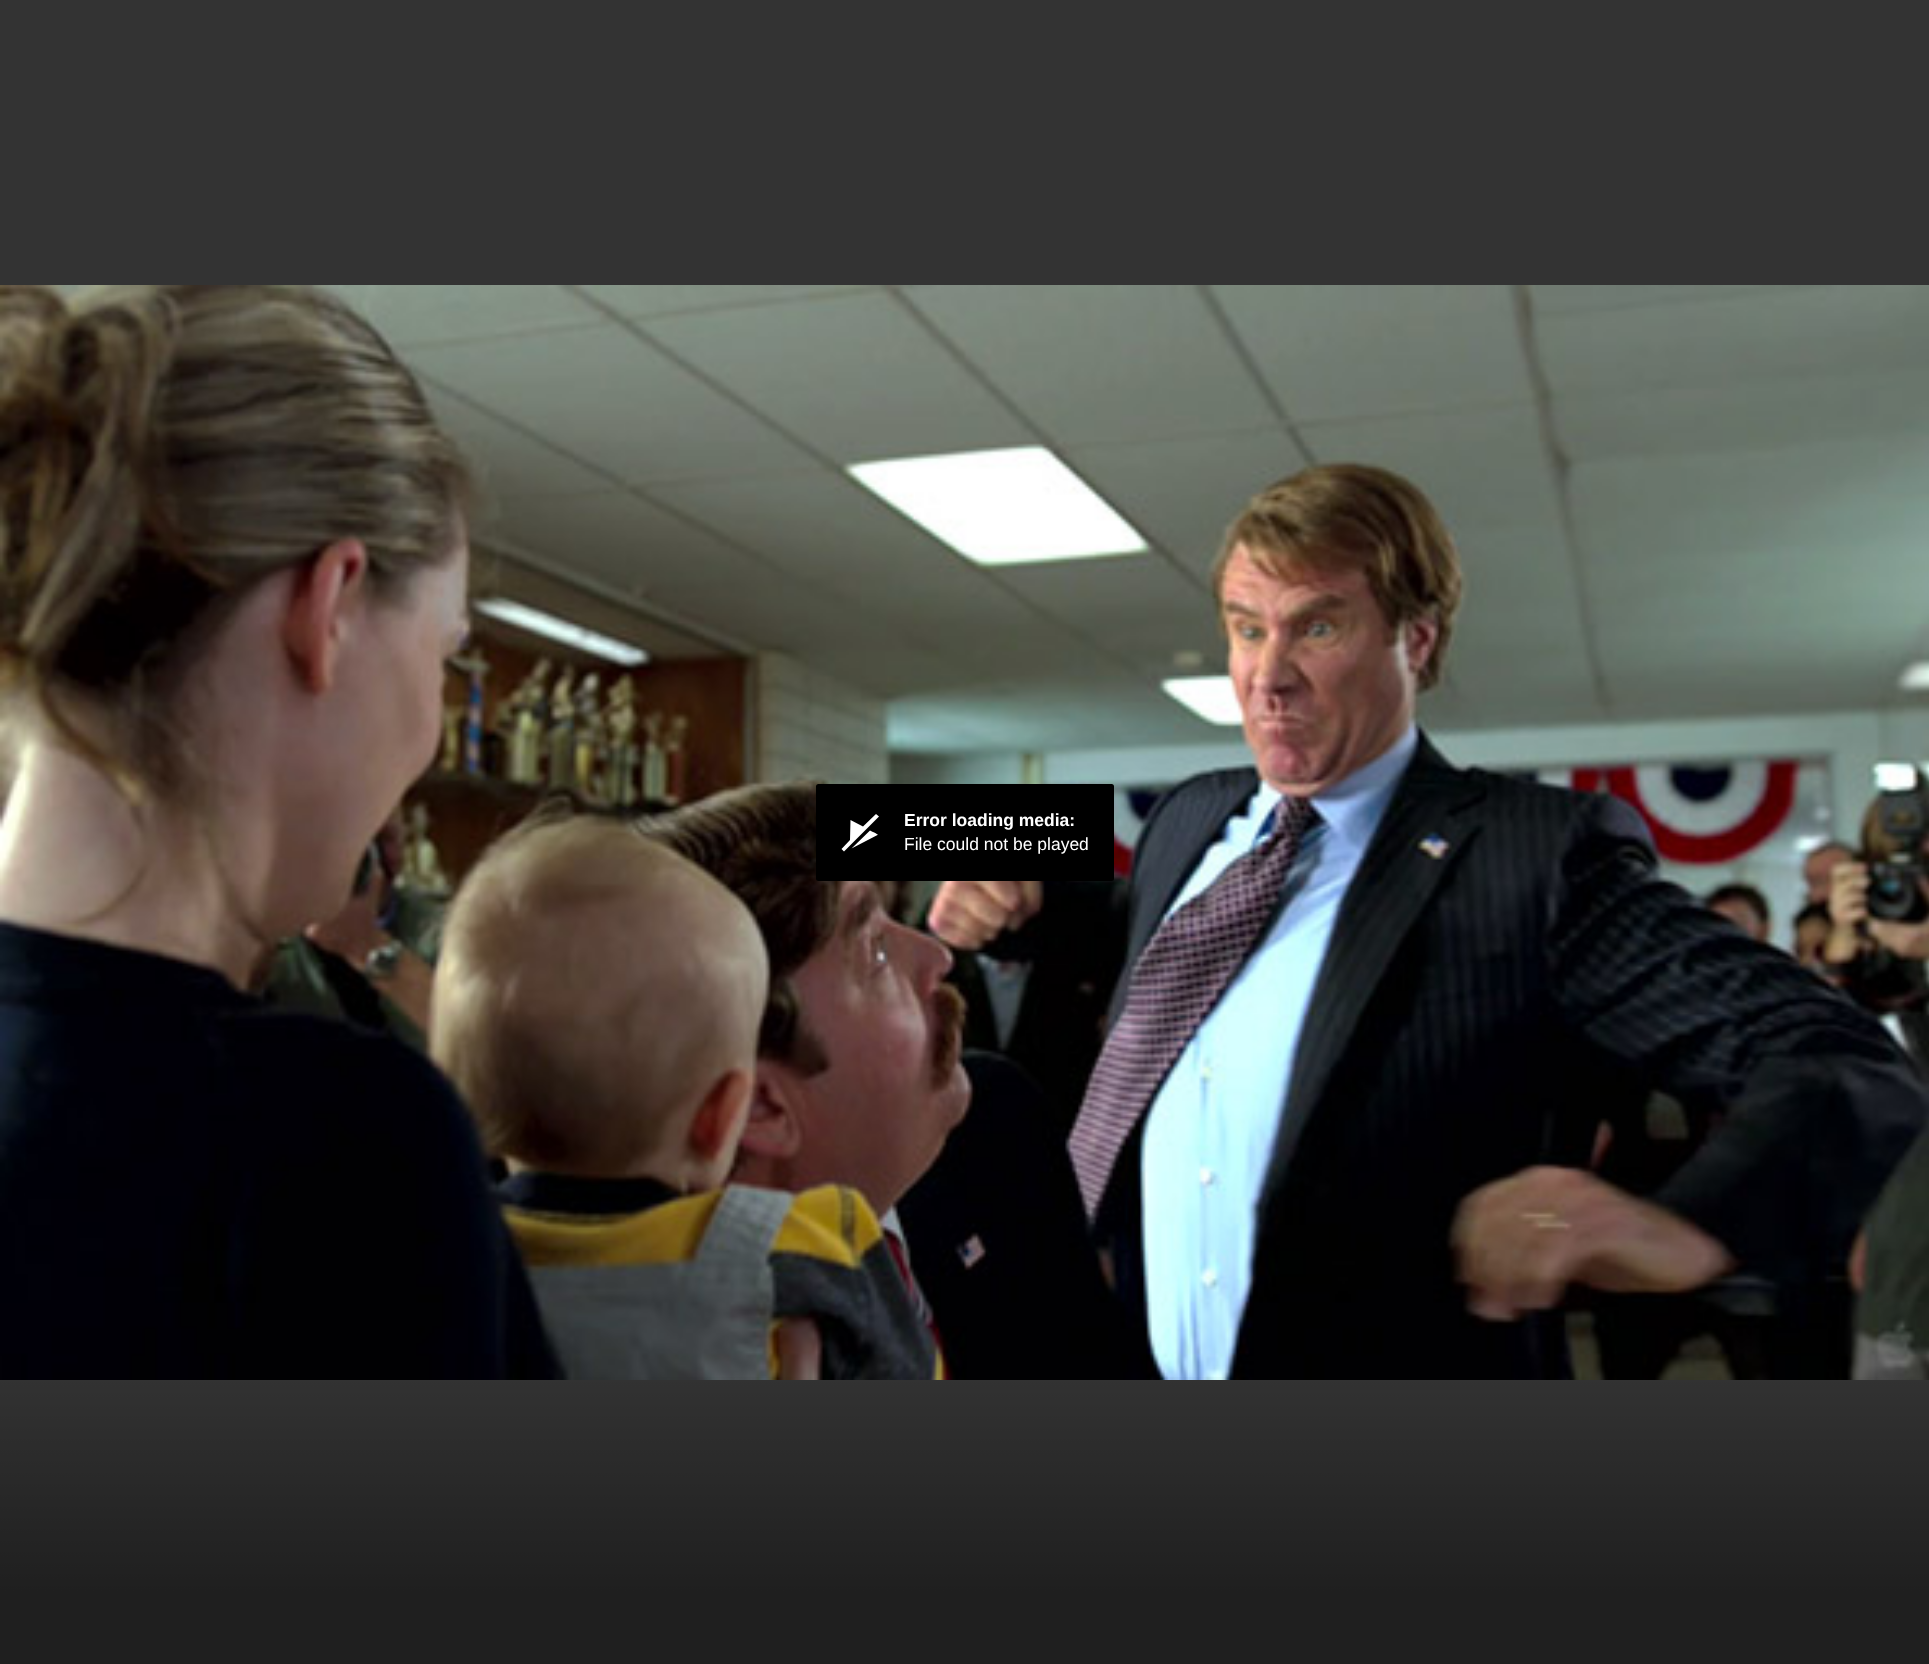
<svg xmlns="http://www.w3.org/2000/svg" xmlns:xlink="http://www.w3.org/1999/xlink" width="1929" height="1664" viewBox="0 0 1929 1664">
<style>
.cls-1{font:bold 17.5px Liberation Sans;fill:#ffffff}
.cls-2{font:17.5px Liberation Sans;fill:#ffffff}
</style>
<defs>
<linearGradient id="g1" gradientUnits="userSpaceOnUse" x1="965" y1="1365" x2="965" y2="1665"><stop offset="0" stop-color="#000000" stop-opacity="0"/><stop offset="0.77" stop-color="#000000" stop-opacity="0.4"/><stop offset="1" stop-color="#000000" stop-opacity="0.4"/></linearGradient>
</defs>
<rect width="100%" height="100%" fill="#333333"/>
<image xlink:href="image0.png" x="0" y="285" width="1929" height="1095"/>
<rect fill="#000000" x="816" y="784" width="298" height="97" rx="2.5"/>
<path fill="#ffffff" d="M877.5 835L851.5 848.5L870 830.5C877 834 878.5 834.5 877.5 835ZM876 814L863 826.5L850.5 820L850 840L841.5 849L844 851.5L879 816.5Z"/>
<rect fill="url(#g1)" x="0" y="1377" width="1929" height="287"/>
<text class="cls-1" x="904" y="826">Error loading media:</text>
<text class="cls-2" x="904" y="850">File could not be played</text>
</svg>
